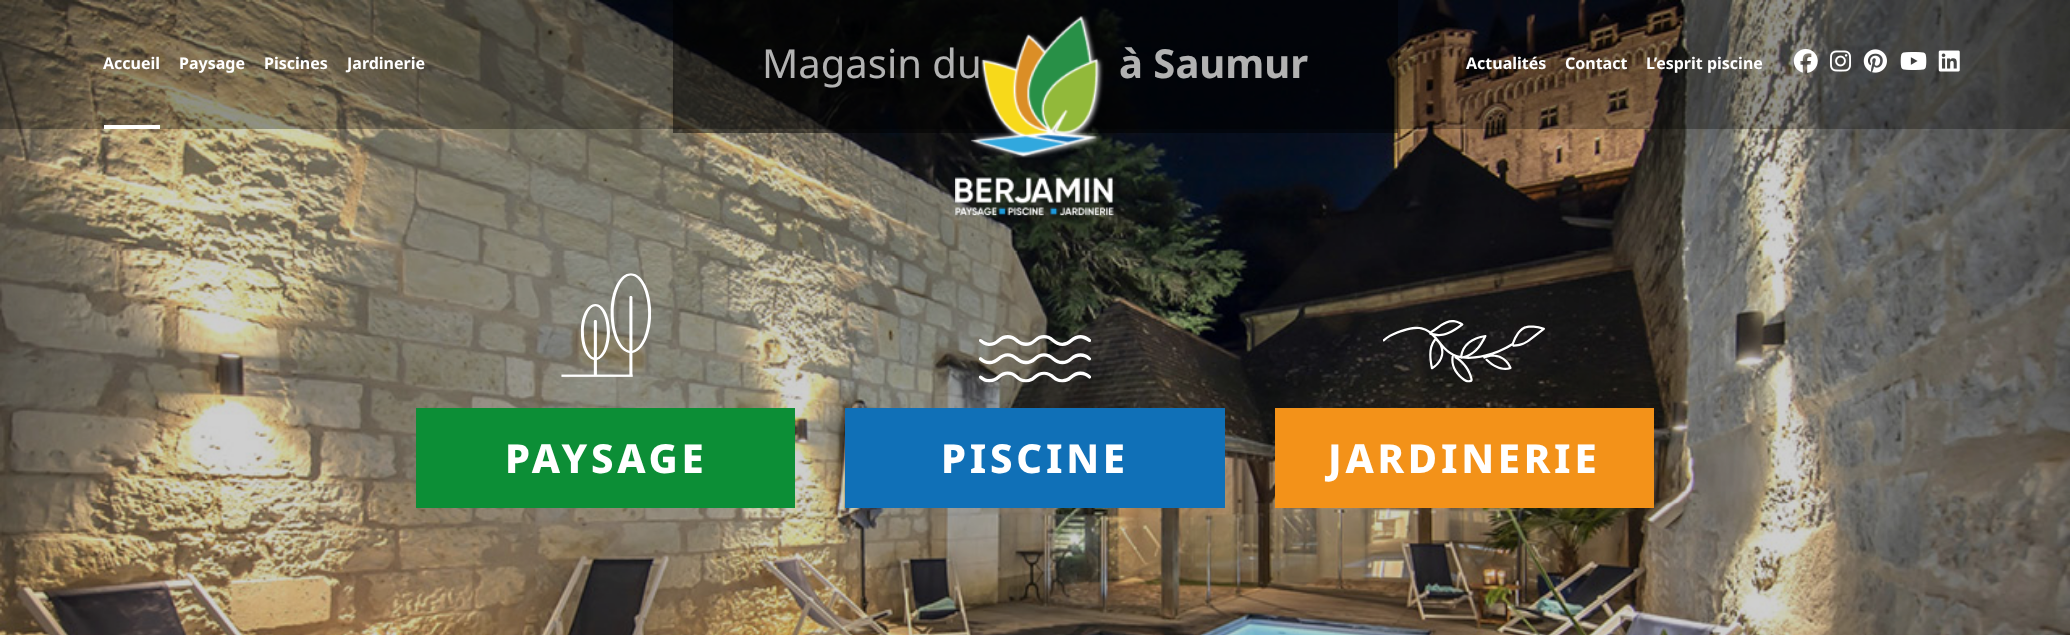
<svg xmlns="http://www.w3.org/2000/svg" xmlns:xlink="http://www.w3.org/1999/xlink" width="2070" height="635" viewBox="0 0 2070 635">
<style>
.cls-1{font:40px Noto Sans;fill:#ffffff}
.cls-2{font:bold 40px Noto Sans;fill:#ffffff}
.cls-3{font:800 40px Noto Sans;letter-spacing:3.75px;fill:#ffffff}
.cls-4{font:bold 16px Noto Sans;fill:#ffffff}
</style>
<rect width="100%" height="100%" fill="#ffffff"/>
<image xlink:href="image0.png" x="0" y="0" width="2070" height="635"/>
<rect fill="#000000" fill-opacity="0.5" x="673" y="0" width="725" height="133"/>
<rect fill="#0c8e36" x="416" y="408" width="379" height="100"/>
<image xlink:href="image1.png" x="561" y="273" width="90" height="104"/>
<rect fill="#1070b7" x="845" y="408" width="380" height="100"/>
<image xlink:href="image2.png" x="979" y="335" width="112" height="48"/>
<rect fill="#f39219" x="1275" y="408" width="379" height="100"/>
<image xlink:href="image3.png" x="1383" y="320" width="162" height="63"/>
<text class="cls-1" x="762" y="78">Magasin du</text>
<text class="cls-2" x="1119" y="78">à Saumur</text>
<text class="cls-3" x="505" y="473">PAYSAGE</text>
<text class="cls-3" x="941" y="473">PISCINE</text>
<text class="cls-3" x="1328" y="473">JARDINERIE</text>
<rect fill="#000000" fill-opacity="0.3" x="0" y="0" width="2070" height="129"/>
<rect fill="#ffffff" x="104" y="125" width="56" height="4"/>
<text class="cls-4" x="103" y="69">Accueil</text>
<text class="cls-4" x="179" y="69">Paysage</text>
<text class="cls-4" x="264" y="69">Piscines</text>
<text class="cls-4" x="347" y="69">Jardinerie</text>
<image xlink:href="image4.png" x="955" y="15" width="159" height="201"/>
<text class="cls-4" x="1466" y="69">Actualités</text>
<text class="cls-4" x="1565" y="69">Contact</text>
<text class="cls-4" x="1646" y="69">L’esprit piscine</text>
<image xlink:href="image5.png" x="1793" y="49" width="25" height="24"/>
<image xlink:href="image6.png" x="1830" y="50" width="21" height="22"/>
<image xlink:href="image7.png" x="1863" y="49" width="24" height="24"/>
<image xlink:href="image8.png" x="1900" y="52" width="27" height="18"/>
<image xlink:href="image9.png" x="1938" y="50" width="22" height="22"/>
</svg>
